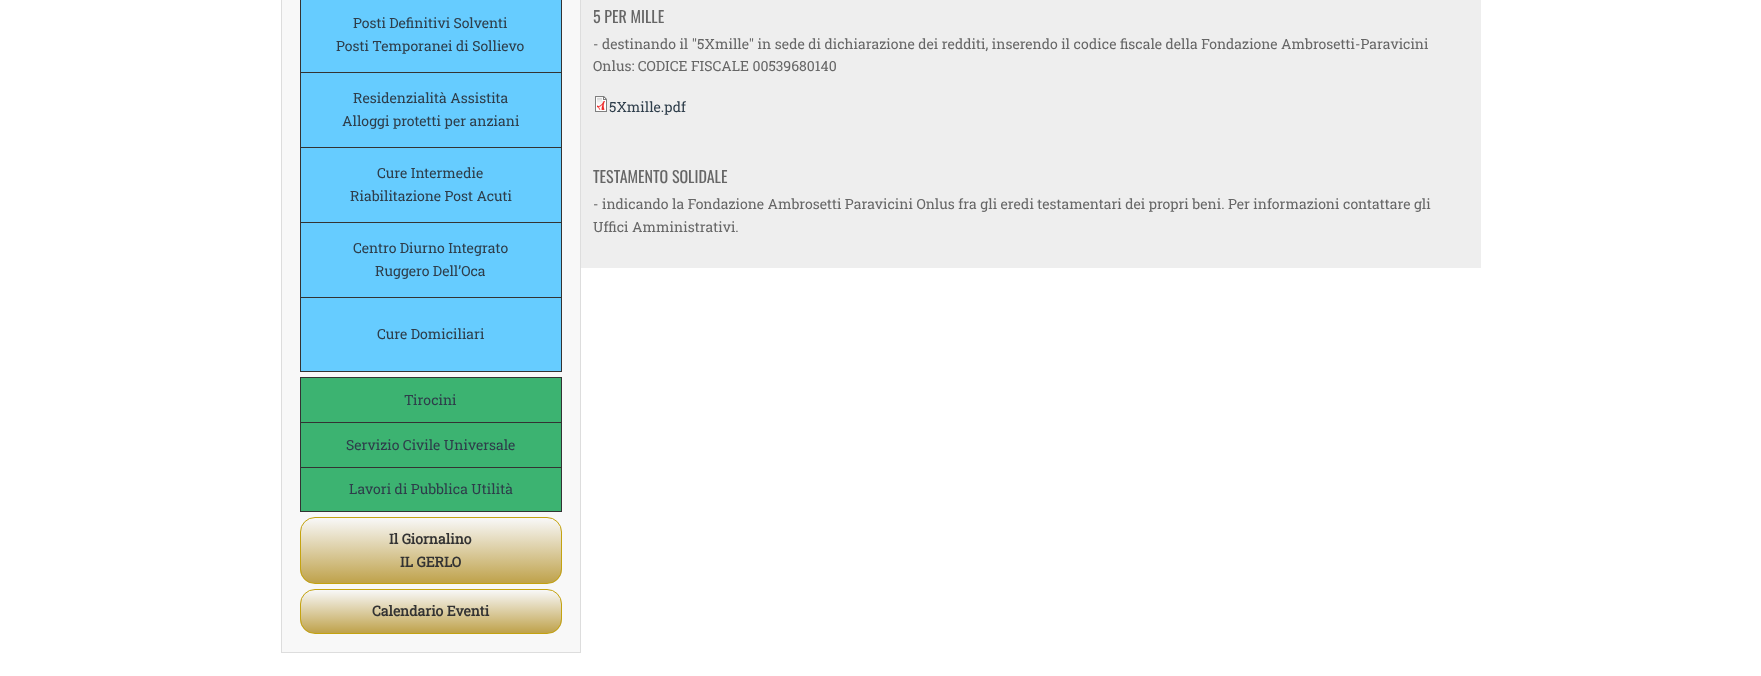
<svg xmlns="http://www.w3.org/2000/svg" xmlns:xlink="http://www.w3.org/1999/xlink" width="1761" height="676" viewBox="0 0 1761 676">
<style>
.cls-1{font:14px Roboto Slab;fill:#2e3d4a}
.cls-2{font:bold 14px Roboto Slab;fill:#333333}
.cls-3{font:16px Oswald;fill:#666666}
.cls-4{font:14px Roboto Slab;fill:#666666}
</style>
<defs>
<clipPath id="clip1"><rect x="300" y="517" width="262" height="67" rx="15"/></clipPath>
<linearGradient id="g1" gradientUnits="userSpaceOnUse" x1="431" y1="518" x2="431" y2="583"><stop offset="0" stop-color="#f8f8f8"/><stop offset="1" stop-color="#bfa24b"/></linearGradient>
<clipPath id="clip2"><rect x="300" y="589" width="262" height="45" rx="15"/></clipPath>
<linearGradient id="g2" gradientUnits="userSpaceOnUse" x1="431" y1="590" x2="431" y2="633"><stop offset="0" stop-color="#f8f8f8"/><stop offset="1" stop-color="#bfa24b"/></linearGradient>
</defs>
<rect width="100%" height="100%" fill="#ffffff"/>
<rect fill="#f8f8f8" stroke="#dddddd" x="281.5" y="-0.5" width="299" height="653"/>
<rect fill="#66ccff" x="301" y="0" width="260" height="371"/>
<rect fill="#333333" x="561" y="0" width="1" height="72"/>
<rect fill="#333333" x="300" y="0" width="1" height="72"/>
<rect fill="#333333" x="300" y="72" width="262" height="1"/>
<rect fill="#333333" x="561" y="72" width="1" height="75"/>
<rect fill="#333333" x="300" y="72" width="1" height="75"/>
<rect fill="#333333" x="300" y="147" width="262" height="1"/>
<rect fill="#333333" x="561" y="147" width="1" height="75"/>
<rect fill="#333333" x="300" y="147" width="1" height="75"/>
<rect fill="#333333" x="300" y="222" width="262" height="1"/>
<rect fill="#333333" x="561" y="222" width="1" height="75"/>
<rect fill="#333333" x="300" y="222" width="1" height="75"/>
<rect fill="none" stroke="#333333" x="300.5" y="297.5" width="261" height="74"/>
<rect fill="#3cb371" x="301" y="378" width="260" height="133"/>
<rect fill="#333333" x="300" y="377" width="262" height="1"/>
<rect fill="#333333" x="561" y="377" width="1" height="45"/>
<rect fill="#333333" x="300" y="377" width="1" height="45"/>
<rect fill="#333333" x="300" y="422" width="262" height="1"/>
<rect fill="#333333" x="561" y="422" width="1" height="45"/>
<rect fill="#333333" x="300" y="422" width="1" height="45"/>
<rect fill="none" stroke="#333333" x="300.5" y="467.5" width="261" height="44"/>
<g clip-path="url(#clip1)">
<rect fill="url(#g1)" x="300" y="518" width="262" height="65"/>
</g>
<rect fill="none" stroke="#c4a310" x="300.5" y="517.5" width="261" height="66" rx="14.5"/>
<g clip-path="url(#clip2)">
<rect fill="url(#g2)" x="300" y="590" width="262" height="43"/>
</g>
<rect fill="none" stroke="#c4a310" x="300.5" y="589.5" width="261" height="44" rx="14.5"/>
<rect fill="#eeeeee" x="581" y="0" width="900" height="268"/>
<image xlink:href="image0.png" x="595" y="96" width="12" height="16"/>
<text class="cls-1" x="353" y="28">Posti Definitivi Solventi</text>
<text class="cls-1" x="336" y="51">Posti Temporanei di Sollievo</text>
<text class="cls-1" x="353" y="103">Residenzialità Assistita</text>
<text class="cls-1" x="342" y="126">Alloggi protetti per anziani</text>
<text class="cls-1" x="377" y="178">Cure Intermedie</text>
<text class="cls-1" x="350" y="201">Riabilitazione Post Acuti</text>
<text class="cls-1" x="353" y="253">Centro Diurno Integrato</text>
<text class="cls-1" x="375" y="276">Ruggero Dell’Oca</text>
<text class="cls-1" x="377" y="339">Cure Domiciliari</text>
<text class="cls-1" x="404" y="405">Tirocini</text>
<text class="cls-1" x="346" y="450">Servizio Civile Universale</text>
<text class="cls-1" x="349" y="494">Lavori di Pubblica Utilità</text>
<text class="cls-2" x="389" y="544">Il Giornalino</text>
<text class="cls-2" x="400" y="567">IL GERLO</text>
<text class="cls-2" x="372" y="616">Calendario Eventi</text>
<text class="cls-3" x="593" y="23">5 PER MILLE</text>
<text class="cls-4"><tspan x="593" y="49">- destinando il "5Xmille" in sede di dichiarazione dei redditi, inserendo il codice fiscale della Fondazione Ambrosetti-Paravicini</tspan><tspan x="593" y="71">Onlus: CODICE FISCALE 00539680140</tspan></text>
<text class="cls-1" x="609" y="112">5Xmille.pdf</text>
<text class="cls-3" x="593" y="183">TESTAMENTO SOLIDALE</text>
<text class="cls-4"><tspan x="593" y="209">- indicando la Fondazione Ambrosetti Paravicini Onlus fra gli eredi testamentari dei propri beni. Per informazioni contattare gli</tspan><tspan x="593" y="232">Uffici Amministrativi.</tspan></text>
</svg>
